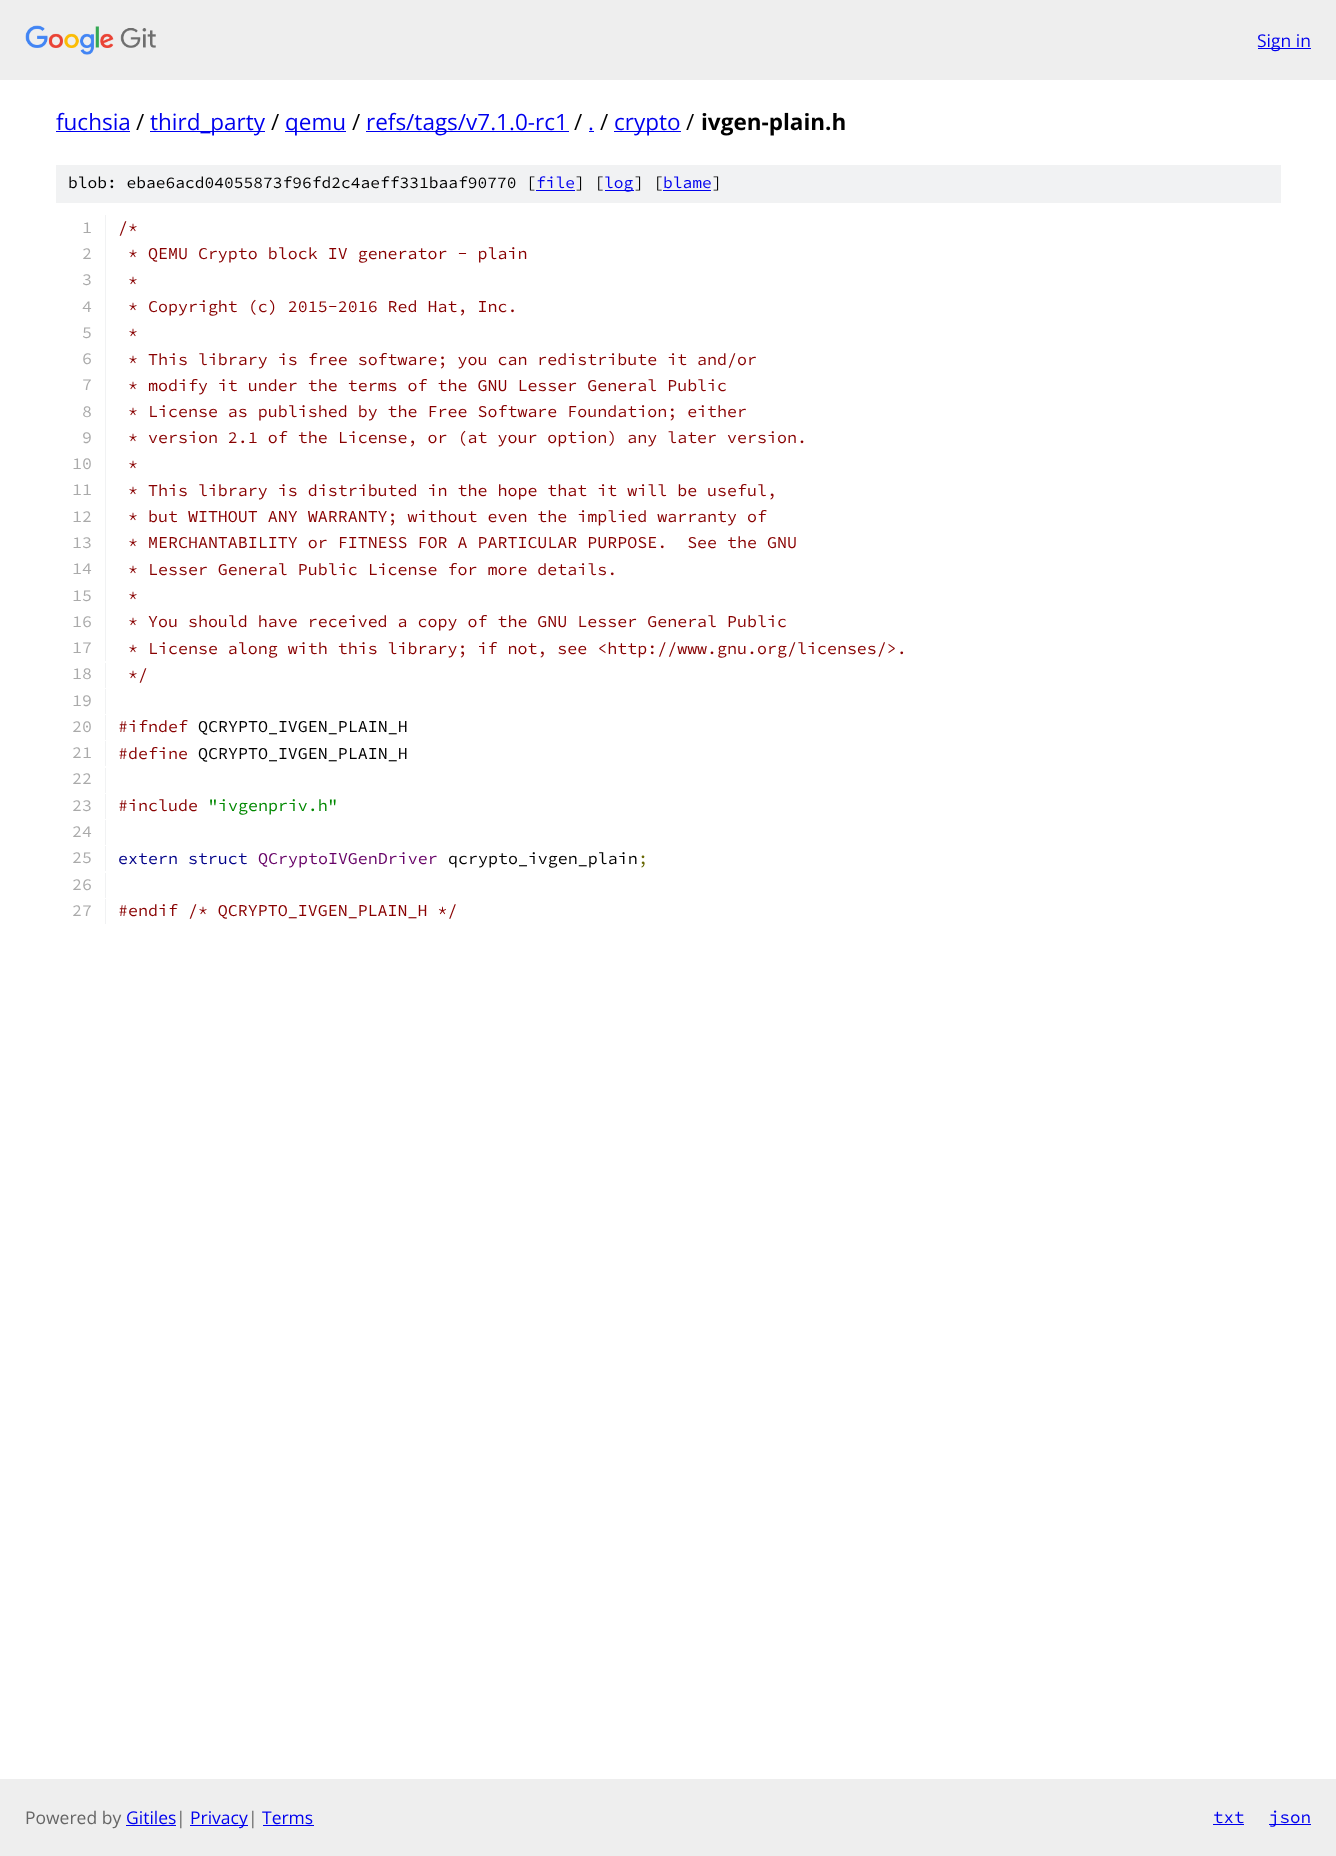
<svg xmlns="http://www.w3.org/2000/svg" xmlns:xlink="http://www.w3.org/1999/xlink" width="1336" height="1856" viewBox="0 0 1336 1856">
<style>
.cls-1{font:17.5px Open Sans;fill:#0000ee}
.cls-2{font:22.5px Open Sans;fill:#0000ee}
.cls-3{font:22.5px Open Sans;fill:#000000}
.cls-4{font:bold 22.5px Open Sans;fill:#000000}
.cls-5{font:200 16.25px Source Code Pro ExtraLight;fill:#000000}
.cls-6{font:200 16.25px Source Code Pro ExtraLight;fill:#0000ee}
.cls-7{font:200 16.65px Source Code Pro ExtraLight;fill:#aaaaaa}
.cls-8{font:200 16.65px Source Code Pro ExtraLight;fill:#880000}
.cls-9{font:200 16.65px Source Code Pro ExtraLight;fill:#000000}
.cls-10{font:200 16.65px Source Code Pro ExtraLight;fill:#008800}
.cls-11{font:200 16.65px Source Code Pro ExtraLight;fill:#000088}
.cls-12{font:200 16.65px Source Code Pro ExtraLight;fill:#660066}
.cls-13{font:200 16.65px Source Code Pro ExtraLight;fill:#666600}
.cls-14{font:17.5px Open Sans;fill:#666666}
.cls-15{font:200 17.5px Source Code Pro ExtraLight;fill:#0000ee}
</style>
<rect width="100%" height="100%" fill="#ffffff"/>
<rect fill="#eeeeee" x="0" y="0" width="1336" height="80"/>
<image xlink:href="image0.png" x="25" y="25" width="131" height="30"/>
<rect fill="#0000ee" x="1258" y="48" width="53" height="1"/>
<rect fill="#0000ee" x="56" y="131" width="74" height="1"/>
<rect fill="#0000ee" x="150" y="131" width="115" height="1"/>
<rect fill="#0000ee" x="285" y="131" width="61" height="1"/>
<rect fill="#0000ee" x="366" y="131" width="203" height="1"/>
<rect fill="#0000ee" x="589" y="131" width="5" height="1"/>
<rect fill="#0000ee" x="614" y="131" width="67" height="1"/>
<rect fill="#f1f2f3" x="56" y="165" width="1225" height="38"/>
<rect fill="#0000ee" x="536" y="190" width="39" height="1"/>
<rect fill="#0000ee" x="605" y="190" width="29" height="1"/>
<rect fill="#0000ee" x="663" y="190" width="48" height="1"/>
<rect fill="#f1f2f3" x="105" y="215" width="1" height="446"/>
<rect fill="#f1f2f3" x="105" y="663" width="1" height="25"/>
<rect fill="#f1f2f3" x="105" y="689" width="1" height="25"/>
<rect fill="#f1f2f3" x="105" y="715" width="1" height="25"/>
<rect fill="#f1f2f3" x="105" y="741" width="1" height="25"/>
<rect fill="#f1f2f3" x="105" y="768" width="1" height="25"/>
<rect fill="#f1f2f3" x="105" y="794" width="1" height="25"/>
<rect fill="#f1f2f3" x="105" y="820" width="1" height="25"/>
<rect fill="#f1f2f3" x="105" y="846" width="1" height="25"/>
<rect fill="#f1f2f3" x="105" y="873" width="1" height="25"/>
<rect fill="#f1f2f3" x="105" y="899" width="1" height="25"/>
<rect fill="#eeeeee" x="0" y="1779" width="1336" height="77"/>
<rect fill="#0000ee" x="126" y="1825" width="50" height="1"/>
<rect fill="#0000ee" x="190" y="1825" width="58" height="1"/>
<rect fill="#0000ee" x="263" y="1825" width="51" height="1"/>
<rect fill="#0000ee" x="1213" y="1824" width="31" height="1"/>
<rect fill="#0000ee" x="1269" y="1824" width="42" height="1"/>
<text class="cls-1" x="1257" y="47">Sign in</text>
<text class="cls-2" x="56" y="130">fuchsia</text>
<text class="cls-3" x="136" y="130">/</text>
<text class="cls-2" x="150" y="130">third_party</text>
<text class="cls-3" x="271" y="130">/</text>
<text class="cls-2" x="285" y="130">qemu</text>
<text class="cls-3" x="352" y="130">/</text>
<text class="cls-2" x="366" y="130">refs/tags/v7.1.0-rc1</text>
<text class="cls-3" x="574" y="130">/</text>
<text class="cls-2" x="588" y="130">.</text>
<text class="cls-3" x="600" y="130">/</text>
<text class="cls-2" x="614" y="130">crypto</text>
<text class="cls-3" x="686" y="130">/</text>
<text class="cls-4" x="701" y="130">ivgen-plain.h</text>
<text class="cls-5" x="68" y="188">blob: ebae6acd04055873f96fd2c4aeff331baaf90770 [</text>
<text class="cls-6" x="536" y="188">file</text>
<text class="cls-5" x="575" y="188">] [</text>
<text class="cls-6" x="604" y="188">log</text>
<text class="cls-5" x="634" y="188">] [</text>
<text class="cls-6" x="663" y="188">blame</text>
<text class="cls-5" x="712" y="188">]</text>
<text class="cls-7" x="82" y="233">1</text>
<text class="cls-8" x="118" y="233">/*</text>
<text class="cls-7" x="82" y="259">2</text>
<text class="cls-8" x="128" y="259">* QEMU Crypto block IV generator - plain</text>
<text class="cls-7" x="82" y="285">3</text>
<text class="cls-8" x="128" y="286">*</text>
<text class="cls-7" x="82" y="312">4</text>
<text class="cls-8" x="128" y="312">* Copyright (c) 2015-2016 Red Hat, Inc.</text>
<text class="cls-7" x="82" y="338">5</text>
<text class="cls-8" x="128" y="338">*</text>
<text class="cls-7" x="82" y="364">6</text>
<text class="cls-8" x="128" y="365">* This library is free software; you can redistribute it and/or</text>
<text class="cls-7" x="82" y="390">7</text>
<text class="cls-8" x="128" y="391">* modify it under the terms of the GNU Lesser General Public</text>
<text class="cls-7" x="82" y="417">8</text>
<text class="cls-8" x="128" y="417">* License as published by the Free Software Foundation; either</text>
<text class="cls-7" x="82" y="443">9</text>
<text class="cls-8" x="128" y="443">* version 2.1 of the License, or (at your option) any later version.</text>
<text class="cls-7" x="72" y="469">10</text>
<text class="cls-8" x="128" y="470">*</text>
<text class="cls-7" x="72" y="495">11</text>
<text class="cls-8" x="128" y="496">* This library is distributed in the hope that it will be useful,</text>
<text class="cls-7" x="72" y="522">12</text>
<text class="cls-8" x="128" y="522">* but WITHOUT ANY WARRANTY; without even the implied warranty of</text>
<text class="cls-7" x="72" y="548">13</text>
<text class="cls-8" xml:space="preserve" x="128" y="548">* MERCHANTABILITY or FITNESS FOR A PARTICULAR PURPOSE.  See the GNU</text>
<text class="cls-7" x="72" y="574">14</text>
<text class="cls-8" x="128" y="575">* Lesser General Public License for more details.</text>
<text class="cls-7" x="72" y="601">15</text>
<text class="cls-8" x="128" y="601">*</text>
<text class="cls-7" x="72" y="627">16</text>
<text class="cls-8" x="128" y="627">* You should have received a copy of the GNU Lesser General Public</text>
<text class="cls-7" x="72" y="653">17</text>
<text class="cls-8" x="128" y="654">* License along with this library; if not, see &lt;http://www.gnu.org/licenses/&gt;.</text>
<text class="cls-7" x="72" y="679">18</text>
<text class="cls-8" x="128" y="680">*/</text>
<text class="cls-7"><tspan x="72" y="706">19</tspan><tspan x="72" y="732">20</tspan></text>
<text class="cls-8" x="118" y="732">#ifndef</text>
<text class="cls-9" x="198" y="732">QCRYPTO_IVGEN_PLAIN_H</text>
<text class="cls-7" x="72" y="758">21</text>
<text class="cls-8" x="118" y="759">#define</text>
<text class="cls-9" x="198" y="759">QCRYPTO_IVGEN_PLAIN_H</text>
<text class="cls-7"><tspan x="72" y="784">22</tspan><tspan x="72" y="811">23</tspan></text>
<text class="cls-8" x="118" y="811">#include</text>
<text class="cls-10" x="208" y="811">"ivgenpriv.h"</text>
<text class="cls-7"><tspan x="72" y="837">24</tspan><tspan x="72" y="863">25</tspan></text>
<text class="cls-11" x="118" y="864">extern struct</text>
<text class="cls-12" x="258" y="864">QCryptoIVGenDriver</text>
<text class="cls-9" x="448" y="864">qcrypto_ivgen_plain</text>
<text class="cls-13" x="638" y="864">;</text>
<text class="cls-7"><tspan x="72" y="890">26</tspan><tspan x="72" y="916">27</tspan></text>
<text class="cls-8" x="118" y="916">#endif /* QCRYPTO_IVGEN_PLAIN_H */</text>
<text class="cls-14" x="25" y="1824">Powered by</text>
<text class="cls-1" x="126" y="1824">Gitiles</text>
<text class="cls-14" x="176" y="1824">|</text>
<text class="cls-1" x="190" y="1824">Privacy</text>
<text class="cls-14" x="248" y="1824">|</text>
<text class="cls-1" x="262" y="1824">Terms</text>
<text class="cls-15" x="1213" y="1823">txt</text>
<text class="cls-15" x="1269" y="1823">json</text>
</svg>
